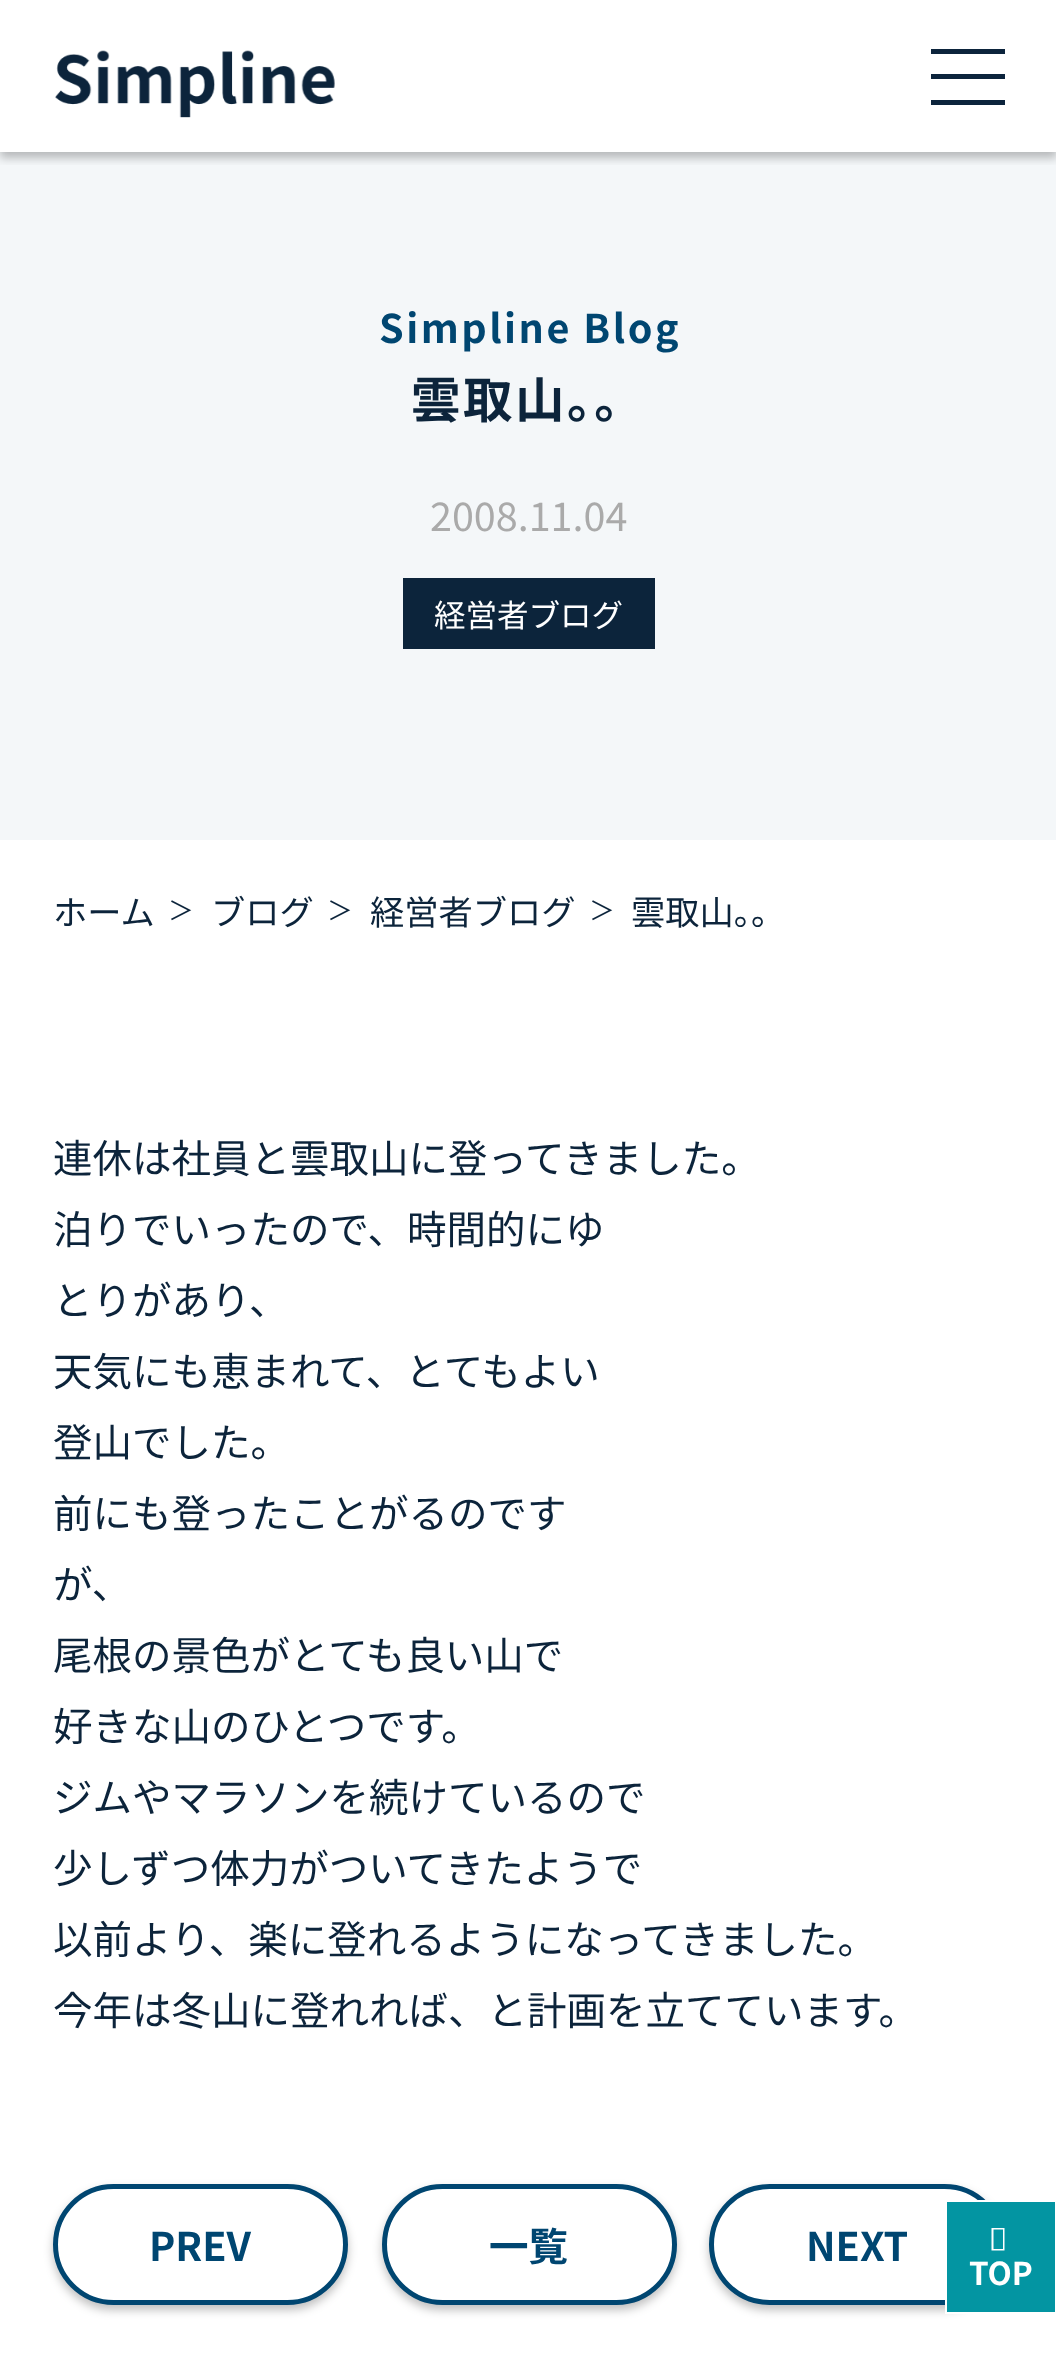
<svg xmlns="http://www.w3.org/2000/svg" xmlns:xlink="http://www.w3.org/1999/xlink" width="1056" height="2368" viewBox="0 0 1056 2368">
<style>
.cls-1{font:bold 39.5px Noto Sans JP;letter-spacing:2.5px;fill:#004671}
.cls-2{font:bold 49.5px Noto Sans JP;letter-spacing:2.5px;fill:#0c243b}
.cls-3{font:39.5px Noto Sans JP;fill:#aaaaaa}
.cls-4{font:31.5px Noto Sans JP;fill:#ffffff}
.cls-5{font:34.25px Noto Sans JP;fill:#0c243b}
.cls-6{font:26px Noto Sans JP;fill:#0c243b}
.cls-7{font:39.5px Noto Sans JP;fill:#0c243b}
.cls-8{font:bold 39.5px Noto Sans JP;fill:#004671}
.cls-9{font:bold 31.5px Noto Sans JP;fill:#ffffff}
</style>
<defs>
<clipPath id="clip1"><rect x="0" y="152" width="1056" height="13"/></clipPath>
</defs>
<rect width="100%" height="100%" fill="#ffffff"/>
<rect fill="#f4f7f9" x="0" y="152" width="1056" height="688"/>
<g clip-path="url(#clip1)">
<rect fill="#000000" fill-opacity="0.25" filter="blur(5px)" x="0" y="5" width="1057" height="153"/>
</g>
<image xlink:href="image0.png" x="55" y="50" width="280" height="68"/>
<rect fill="#0c243c" x="931" y="49" width="74" height="5"/>
<rect fill="#0c243c" x="931" y="74" width="74" height="5"/>
<rect fill="#0c243c" x="931" y="100" width="74" height="5"/>
<rect fill="#0c243b" x="403" y="578" width="252" height="71"/>
<rect fill="#000000" fill-opacity="0.25" filter="blur(5px)" x="53" y="2189" width="295" height="121" rx="60.5"/>
<rect fill="#ffffff" stroke="#004671" stroke-width="5" x="55.5" y="2186.5" width="290" height="116" rx="58"/>
<rect fill="#000000" fill-opacity="0.25" filter="blur(5px)" x="382" y="2189" width="295" height="121" rx="60.5"/>
<rect fill="#ffffff" stroke="#004671" stroke-width="5" x="384.5" y="2186.5" width="290" height="116" rx="58"/>
<rect fill="#000000" fill-opacity="0.25" filter="blur(5px)" x="709" y="2189" width="296" height="121" rx="60.5"/>
<rect fill="#ffffff" stroke="#004671" stroke-width="5" x="711.5" y="2186.5" width="291" height="116" rx="58"/>
<rect fill="#0395a2" stroke="#ffffff" stroke-width="2" x="946" y="2201" width="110" height="112"/>
<path fill="#ffffff" d="M991.5 2250.5V2228H1004.5V2250.5ZM993.5 2249H1003V2229.5H993.5Z"/>
<text class="cls-1" x="379" y="343">Simpline Blog</text>
<text class="cls-2" x="411" y="418">雲取山。。</text>
<text class="cls-3" x="430" y="531">2008.11.04</text>
<text class="cls-4" x="434" y="627">経営者ブログ</text>
<text class="cls-5" x="53" y="925">ホーム</text>
<text class="cls-6" x="168" y="920">＞</text>
<text class="cls-5" x="211" y="925">ブログ</text>
<text class="cls-6" x="327" y="920">＞</text>
<text class="cls-5" x="370" y="925">経営者ブログ</text>
<text class="cls-6" x="589" y="920">＞</text>
<text class="cls-5" x="631" y="925">雲取山。。</text>
<text class="cls-7"><tspan x="53" y="1173">連休は社員と雲取山に登ってきました。</tspan><tspan x="53" y="1244">泊りでいったので、時間的にゆ</tspan><tspan x="53" y="1315">とりがあり、</tspan><tspan x="53" y="1386">天気にも恵まれて、とてもよい</tspan><tspan x="53" y="1457">登山でした。</tspan><tspan x="53" y="1528">前にも登ったことがるのです</tspan><tspan x="53" y="1599">が、</tspan><tspan x="53" y="1670">尾根の景色がとても良い山で</tspan><tspan x="53" y="1741">好きな山のひとつです。</tspan><tspan x="53" y="1812">ジムやマラソンを続けているので</tspan><tspan x="53" y="1883">少しずつ体力がついてきたようで</tspan><tspan x="53" y="1954">以前より、楽に登れるようになってきました。</tspan><tspan x="53" y="2025">今年は冬山に登れれば、と計画を立てています。</tspan></text>
<text class="cls-8" x="149" y="2261">PREV</text>
<text class="cls-8" x="489" y="2261">一覧</text>
<text class="cls-8" x="806" y="2261">NEXT</text>
<text class="cls-9" x="969" y="2285">TOP</text>
</svg>
